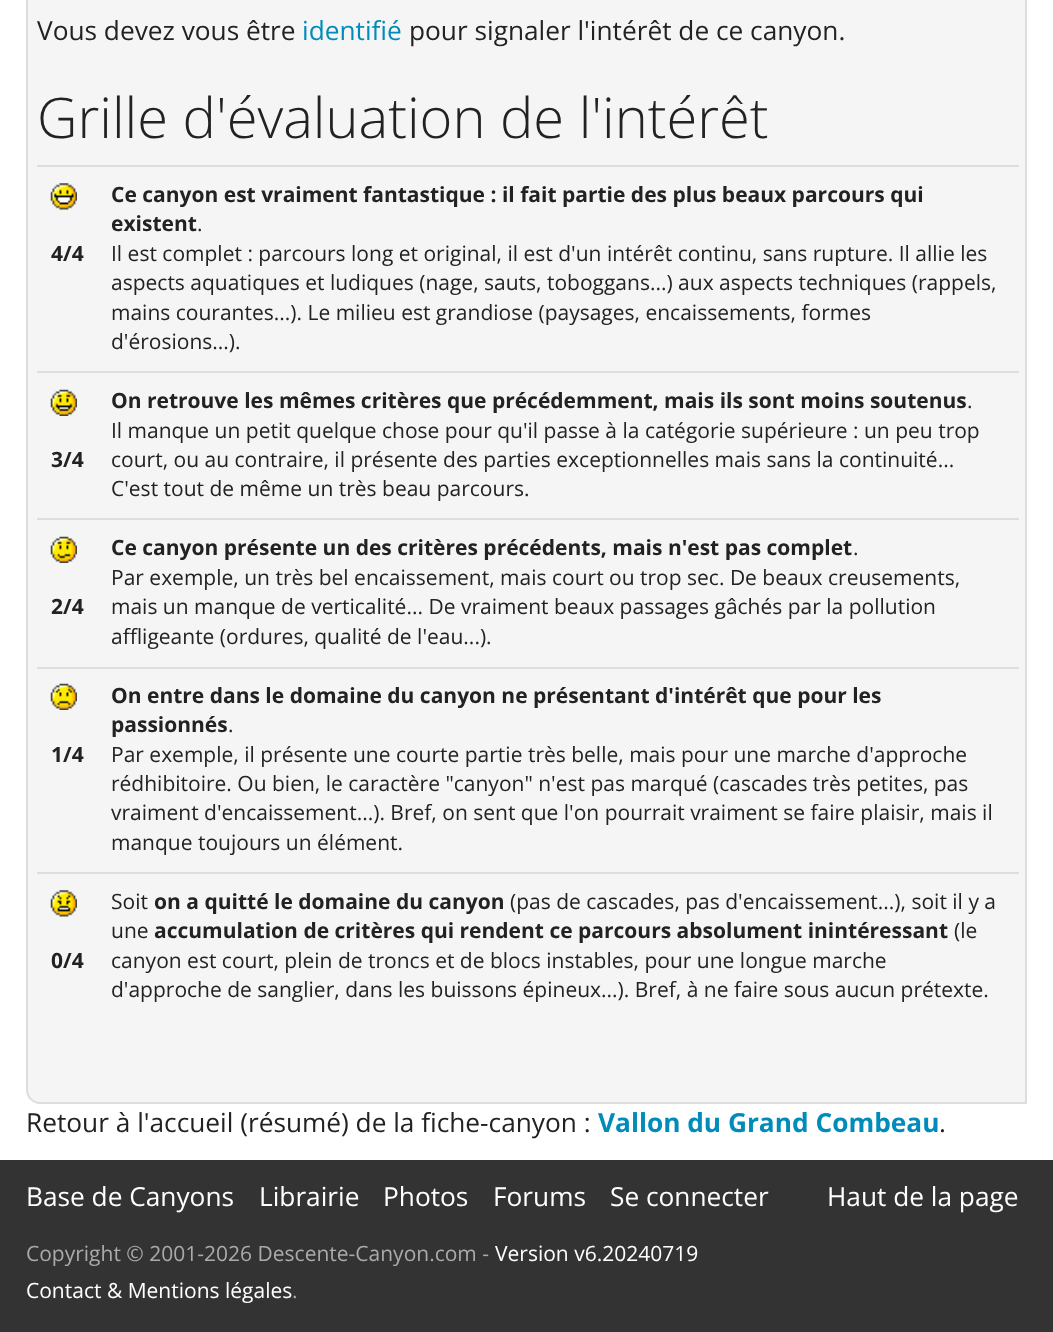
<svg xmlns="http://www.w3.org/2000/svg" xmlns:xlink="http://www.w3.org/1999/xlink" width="1053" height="1332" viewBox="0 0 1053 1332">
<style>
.cls-1{font:26.25px Open Sans;fill:#222222}
.cls-2{font:26.25px Open Sans;fill:#008cba}
.cls-3{font:300 56px Open Sans;fill:#222222}
.cls-4{font:bold 21px Open Sans;fill:#222222}
.cls-5{font:21px Open Sans;fill:#222222}
.cls-6{font:bold 26.25px Open Sans;fill:#008cba}
.cls-7{font:26.25px Open Sans;fill:#ffffff}
.cls-8{font:21px Open Sans;fill:#aaaaaa}
.cls-9{font:21px Open Sans;fill:#ffffff}
</style>
<rect width="100%" height="100%" fill="#ffffff"/>
<path fill="#f5f5f5" stroke="#dddddd" stroke-width="2" d="M27-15H1013C1020-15 1026-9 1026-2V1103H40C33 1103 27 1097 27 1090Z"/>
<image xlink:href="image0.png" x="50" y="183" width="27" height="27"/>
<rect fill="#dddddd" x="37" y="165" width="982" height="2"/>
<image xlink:href="image1.png" x="50" y="389" width="27" height="27"/>
<rect fill="#dddddd" x="37" y="371" width="982" height="2"/>
<image xlink:href="image2.png" x="50" y="536" width="27" height="27"/>
<rect fill="#dddddd" x="37" y="518" width="982" height="2"/>
<image xlink:href="image3.png" x="50" y="683" width="27" height="27"/>
<rect fill="#dddddd" x="37" y="667" width="982" height="2"/>
<image xlink:href="image4.png" x="50" y="890" width="27" height="27"/>
<rect fill="#dddddd" x="37" y="872" width="982" height="2"/>
<rect fill="#333333" x="0" y="1160" width="1053" height="172"/>
<text class="cls-1" x="37" y="40">Vous devez vous être</text>
<text class="cls-2" x="302" y="40">identifié</text>
<text class="cls-1" x="409" y="40">pour signaler l'intérêt de ce canyon.</text>
<text class="cls-3" x="37" y="138">Grille d'évaluation de l'intérêt</text>
<text class="cls-4" x="51" y="261">4/4</text>
<text class="cls-4"><tspan x="111" y="202">Ce canyon est vraiment fantastique : il fait partie des plus beaux parcours qui</tspan><tspan x="111" y="231">existent</tspan></text>
<text class="cls-5" x="197" y="231">.</text>
<text class="cls-5"><tspan x="111" y="261">Il est complet : parcours long et original, il est d'un intérêt continu, sans rupture. Il allie les</tspan><tspan x="111" y="290">aspects aquatiques et ludiques (nage, sauts, toboggans...) aux aspects techniques (rappels,</tspan><tspan x="111" y="320">mains courantes...). Le milieu est grandiose (paysages, encaissements, formes</tspan><tspan x="111" y="349">d'érosions...).</tspan></text>
<text class="cls-4" x="51" y="467">3/4</text>
<text class="cls-4" x="111" y="408">On retrouve les mêmes critères que précédemment, mais ils sont moins soutenus</text>
<text class="cls-5" x="967" y="408">.</text>
<text class="cls-5"><tspan x="111" y="438">Il manque un petit quelque chose pour qu'il passe à la catégorie supérieure : un peu trop</tspan><tspan x="111" y="467">court, ou au contraire, il présente des parties exceptionnelles mais sans la continuité...</tspan><tspan x="111" y="496">C'est tout de même un très beau parcours.</tspan></text>
<text class="cls-4" x="51" y="614">2/4</text>
<text class="cls-4" x="111" y="555">Ce canyon présente un des critères précédents, mais n'est pas complet</text>
<text class="cls-5" x="853" y="555">.</text>
<text class="cls-5"><tspan x="111" y="585">Par exemple, un très bel encaissement, mais court ou trop sec. De beaux creusements,</tspan><tspan x="111" y="614">mais un manque de verticalité... De vraiment beaux passages gâchés par la pollution</tspan><tspan x="111" y="644">affligeante (ordures, qualité de l'eau...).</tspan></text>
<text class="cls-4" x="51" y="762">1/4</text>
<text class="cls-4"><tspan x="111" y="703">On entre dans le domaine du canyon ne présentant d'intérêt que pour les</tspan><tspan x="111" y="732">passionnés</tspan></text>
<text class="cls-5" x="228" y="732">.</text>
<text class="cls-5"><tspan x="111" y="762">Par exemple, il présente une courte partie très belle, mais pour une marche d'approche</tspan><tspan x="111" y="791">rédhibitoire. Ou bien, le caractère "canyon" n'est pas marqué (cascades très petites, pas</tspan><tspan x="111" y="820">vraiment d'encaissement...). Bref, on sent que l'on pourrait vraiment se faire plaisir, mais il</tspan><tspan x="111" y="850">manque toujours un élément.</tspan></text>
<text class="cls-4" x="51" y="968">0/4</text>
<text class="cls-5" x="111" y="909">Soit</text>
<text class="cls-4" x="154" y="909">on a quitté le domaine du canyon</text>
<text class="cls-5" x="510" y="909">(pas de cascades, pas d'encaissement...), soit il y a</text>
<text class="cls-5" x="111" y="938">une</text>
<text class="cls-4" x="154" y="938">accumulation de critères qui rendent ce parcours absolument inintéressant</text>
<text class="cls-5" x="954" y="938">(le</text>
<text class="cls-5"><tspan x="111" y="968">canyon est court, plein de troncs et de blocs instables, pour une longue marche</tspan><tspan x="111" y="997">d'approche de sanglier, dans les buissons épineux...). Bref, à ne faire sous aucun prétexte.</tspan></text>
<text class="cls-1" x="26" y="1132">Retour à l'accueil (résumé) de la fiche-canyon :</text>
<text class="cls-6" x="598" y="1132">Vallon du Grand Combeau</text>
<text class="cls-1" x="939" y="1132">.</text>
<text class="cls-7" x="26" y="1206">Base de Canyons</text>
<text class="cls-7" x="259" y="1206">Librairie</text>
<text class="cls-7" x="383" y="1206">Photos</text>
<text class="cls-7" x="493" y="1206">Forums</text>
<text class="cls-7" x="610" y="1206">Se connecter</text>
<text class="cls-7" x="827" y="1206">Haut de la page</text>
<text class="cls-8" x="26" y="1261">Copyright © 2001-2026 Descente-Canyon.com -</text>
<text class="cls-9" x="495" y="1261">Version v6.20240719</text>
<text class="cls-9" x="26" y="1298">Contact &amp; Mentions légales</text>
<text class="cls-8" x="292" y="1298">.</text>
</svg>
